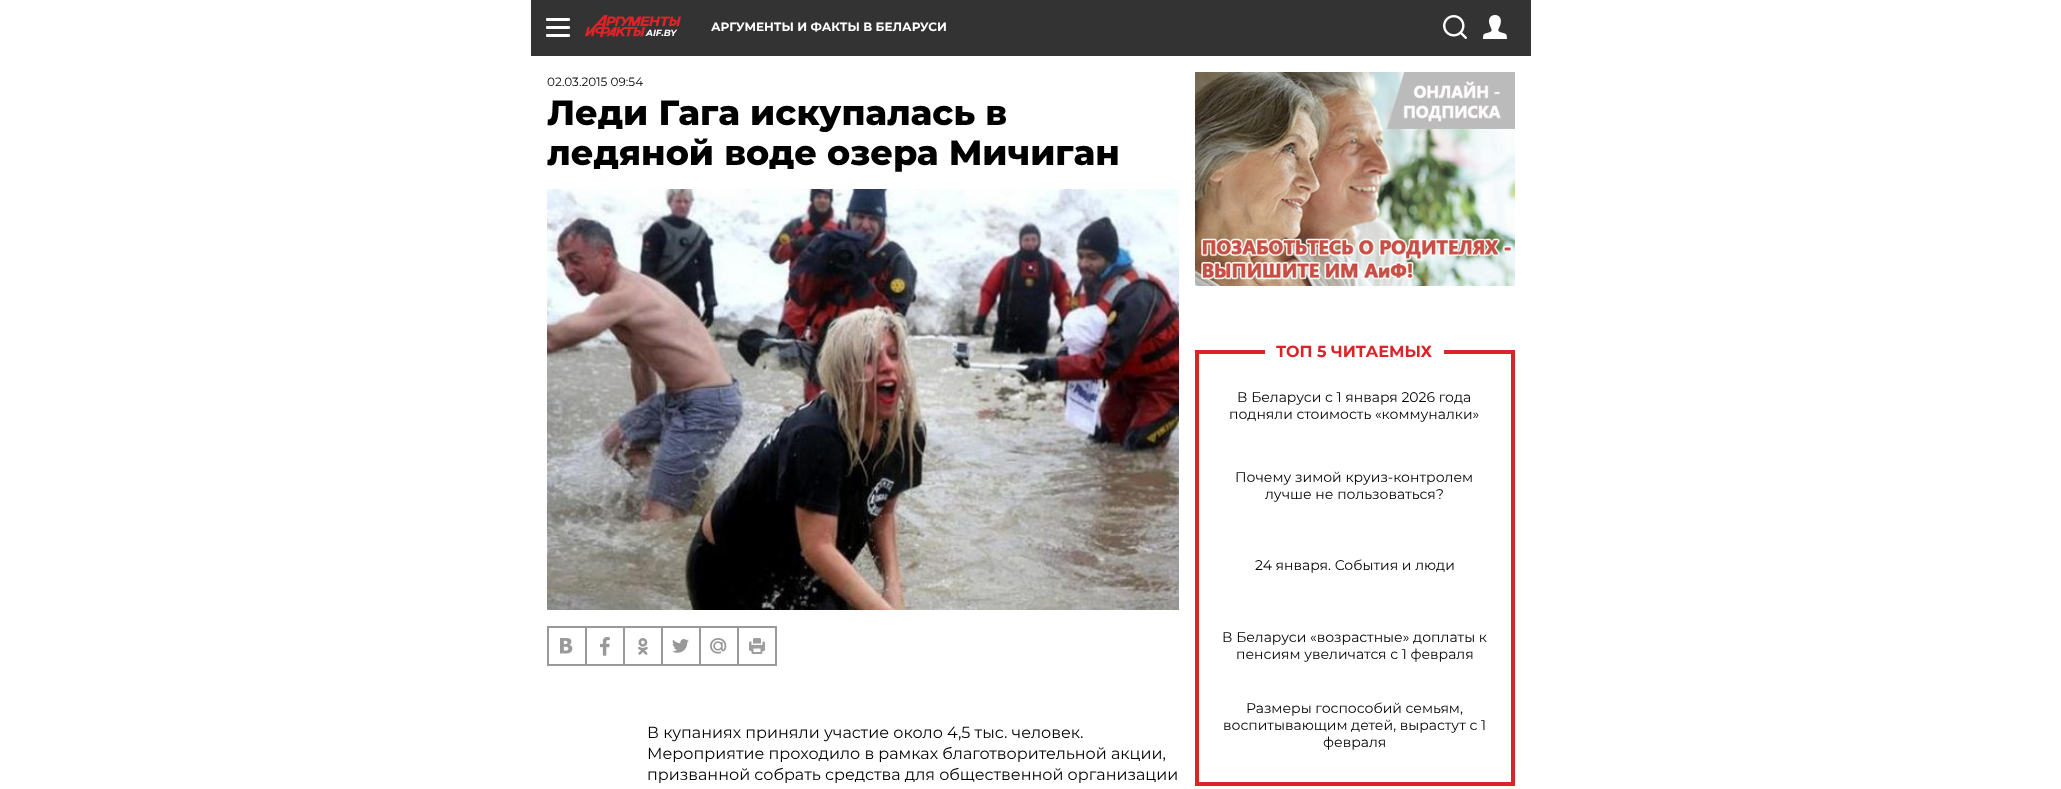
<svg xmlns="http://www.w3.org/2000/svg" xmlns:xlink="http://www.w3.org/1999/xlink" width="2061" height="789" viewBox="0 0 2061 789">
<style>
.cls-1{font:bold 12px Montserrat;fill:#ffffff}
.cls-2{font:italic bold 9px Montserrat;fill:#ffffff}
.cls-3{font:12px Montserrat;fill:#000000}
.cls-4{font:800 35px Montserrat;fill:#000000}
.cls-5{font:16px Montserrat;fill:#000000}
.cls-6{font:bold 16px Montserrat;fill:#da2429}
.cls-7{font:14px Montserrat;fill:#000000}
</style>
<rect width="100%" height="100%" fill="#ffffff"/>
<rect fill="#333333" x="531" y="0" width="1000" height="56"/>
<rect fill="#ffffff" x="546" y="18" width="24" height="3" rx="1"/>
<rect fill="#ffffff" x="546" y="26" width="24" height="3" rx="1"/>
<rect fill="#ffffff" x="546" y="34" width="24" height="3" rx="1"/>
<image xlink:href="image0.png" x="1443" y="15" width="24" height="24"/>
<image xlink:href="image1.png" x="1483" y="15" width="24" height="24"/>
<image xlink:href="image2.png" x="585" y="15" width="96" height="22"/>
<image xlink:href="image3.png" x="547" y="189" width="632" height="421"/>
<rect fill="none" stroke="#999999" x="547.5" y="626.5" width="229" height="39"/>
<rect fill="none" stroke="#999999" x="548.5" y="627.5" width="37" height="37"/>
<image xlink:href="image4.png" x="560" y="638" width="13" height="16"/>
<rect fill="none" stroke="#999999" x="586.5" y="627.5" width="37" height="37"/>
<image xlink:href="image5.png" x="600" y="637" width="10" height="19"/>
<rect fill="none" stroke="#999999" x="624.5" y="627.5" width="37" height="37"/>
<image xlink:href="image6.png" x="638" y="638" width="10" height="17"/>
<rect fill="none" stroke="#999999" x="662.5" y="627.5" width="37" height="37"/>
<image xlink:href="image7.png" x="672" y="639" width="17" height="14"/>
<rect fill="none" stroke="#999999" x="700.5" y="627.5" width="37" height="37"/>
<image xlink:href="image8.png" x="710" y="638" width="17" height="16"/>
<rect fill="none" stroke="#999999" x="738.5" y="627.5" width="37" height="37"/>
<image xlink:href="image9.png" x="749" y="638" width="16" height="16"/>
<image xlink:href="image10.png" x="1195" y="72" width="320" height="214"/>
<rect fill="#da2429" x="1511" y="350" width="4" height="436"/>
<rect fill="#da2429" x="1195" y="782" width="320" height="4"/>
<rect fill="#da2429" x="1195" y="350" width="4" height="436"/>
<rect fill="#da2429" x="1195" y="350" width="70" height="4"/>
<rect fill="#da2429" x="1444" y="350" width="71" height="4"/>
<text class="cls-1" x="711" y="31">АРГУМЕНТЫ И ФАКТЫ В БЕЛАРУСИ</text>
<text class="cls-2" x="646" y="36">AIF.BY</text>
<text class="cls-3" x="547" y="86">02.03.2015 09:54</text>
<text class="cls-4"><tspan x="547" y="125">Леди Гага искупалась в</tspan><tspan x="547" y="165">ледяной воде озера Мичиган</tspan></text>
<text class="cls-5"><tspan x="647" y="738">В купаниях приняли участие около 4,5 тыс. человек.</tspan><tspan x="647" y="759">Мероприятие проходило в рамках благотворительной акции,</tspan><tspan x="647" y="780">призванной собрать средства для общественной организации</tspan></text>
<text class="cls-6" x="1276" y="357">ТОП 5 ЧИТАЕМЫХ</text>
<text class="cls-7" x="1237" y="402">В Беларуси с 1 января 2026 года</text>
<text class="cls-7" x="1229" y="419">подняли стоимость «коммуналки»</text>
<text class="cls-7" x="1235" y="482">Почему зимой круиз-контролем</text>
<text class="cls-7" x="1265" y="499">лучше не пользоваться?</text>
<text class="cls-7" x="1255" y="570">24 января. События и люди</text>
<text class="cls-7" x="1222" y="642">В Беларуси «возрастные» доплаты к</text>
<text class="cls-7" x="1236" y="659">пенсиям увеличатся с 1 февраля</text>
<text class="cls-7" x="1246" y="713">Размеры госпособий семьям,</text>
<text class="cls-7" x="1223" y="730">воспитывающим детей, вырастут с 1</text>
<text class="cls-7" x="1323" y="747">февраля</text>
</svg>
